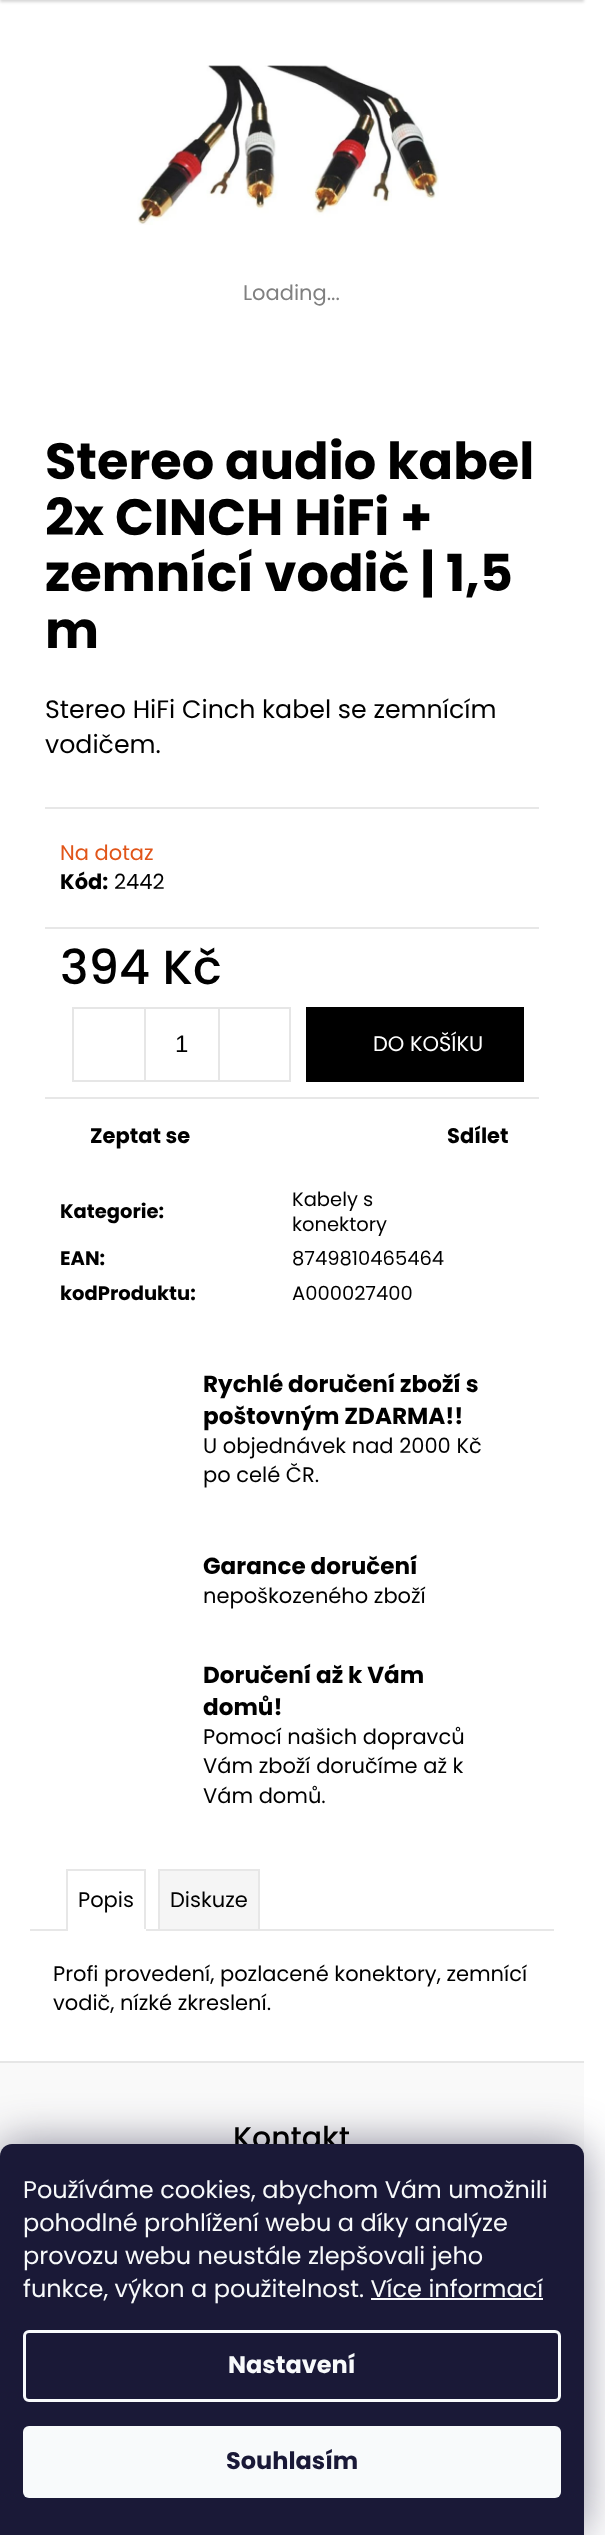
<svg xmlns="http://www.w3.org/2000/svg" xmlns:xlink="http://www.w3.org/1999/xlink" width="605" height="2535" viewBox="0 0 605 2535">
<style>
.cls-1{font:21px Poppins;fill:#808080}
.cls-2{font:bold 51px Poppins;fill:#000000}
.cls-3{font:25.25px Poppins;fill:#000000}
.cls-4{font:21px Poppins;fill:#e15519}
.cls-5{font:bold 21px Poppins;fill:#000000}
.cls-6{font:21px Poppins;fill:#000000}
.cls-7{font:500 48px Poppins;fill:#000000}
.cls-8{font:24px Liberation Sans;fill:#000000}
.cls-9{font:21px Poppins;fill:#ffffff}
.cls-10{font:bold 19.5px Poppins;fill:#000000}
.cls-11{font:19.5px Poppins;fill:#000000}
.cls-12{font:bold 23.1px Poppins;fill:#000000}
.cls-13{font:500 30px Poppins;fill:#000000}
.cls-14{font:24px Poppins;fill:#f8fafb}
.cls-15{font:bold 24px Poppins;fill:#f8fafb}
.cls-16{font:bold 24px Poppins;fill:#1a1937}
</style>
<rect width="100%" height="100%" fill="#ffffff"/>
<rect fill="#000000" fill-opacity="0.16" filter="blur(1.5px)" x="0" y="-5" width="584" height="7"/>
<image xlink:href="image0.png" x="137" y="65" width="302" height="160"/>
<rect fill="#e7e7e7" x="45" y="807" width="494" height="2"/>
<rect fill="#e7e7e7" x="45" y="927" width="494" height="2"/>
<rect fill="#e7e7e7" x="45" y="1097" width="494" height="2"/>
<rect fill="none" stroke="#e6e6e6" stroke-width="2" x="73" y="1008" width="217" height="73"/>
<rect fill="#e6e6e6" x="144" y="1008" width="2" height="72"/>
<rect fill="#e6e6e6" x="218" y="1008" width="2" height="72"/>
<rect fill="#000000" x="306" y="1007" width="218" height="75"/>
<rect fill="#e7e7e7" x="30" y="1929" width="524" height="2"/>
<rect fill="#e7e7e7" x="66" y="1869" width="80" height="2"/>
<rect fill="#e7e7e7" x="144" y="1869" width="2" height="62"/>
<rect fill="#ffffff" x="66" y="1929" width="80" height="2"/>
<rect fill="#e7e7e7" x="66" y="1869" width="2" height="62"/>
<rect fill="#f5f5f5" stroke="#e7e7e7" stroke-width="2" x="159" y="1870" width="100" height="60"/>
<rect fill="#f9f9f9" x="0" y="2063" width="584" height="93"/>
<rect fill="#e6e6e6" x="0" y="2061" width="584" height="2"/>
<rect fill="#1b1939" fill-opacity="0.5" filter="blur(22.5px)" x="0" y="2144" width="584" height="391" rx="12"/>
<text class="cls-1" x="243" y="300">Loading...</text>
<text class="cls-2"><tspan x="45" y="479">Stereo audio kabel</tspan><tspan x="45" y="535">2x CINCH HiFi +</tspan><tspan x="45" y="591">zemnící vodič | 1,5</tspan><tspan x="45" y="648">m</tspan></text>
<text class="cls-3"><tspan x="45" y="718">Stereo HiFi Cinch kabel se zemnícím</tspan><tspan x="45" y="753">vodičem.</tspan></text>
<text class="cls-4" x="60" y="860">Na dotaz</text>
<text class="cls-5" x="60" y="889">Kód:</text>
<text class="cls-6" x="114" y="889">2442</text>
<text class="cls-7" x="60" y="984">394 Kč</text>
<text class="cls-8" x="175" y="1052">1</text>
<text class="cls-9" x="373" y="1051">DO KOŠÍKU</text>
<text class="cls-5" x="90" y="1143">Zeptat se</text>
<text class="cls-5" x="447" y="1143">Sdílet</text>
<text class="cls-10" x="60" y="1218">Kategorie:</text>
<text class="cls-11"><tspan x="292" y="1206">Kabely s</tspan><tspan x="292" y="1231">konektory</tspan></text>
<text class="cls-10" x="60" y="1265">EAN:</text>
<text class="cls-11" x="292" y="1265">8749810465464</text>
<text class="cls-10" x="60" y="1300">kodProduktu:</text>
<text class="cls-11" x="292" y="1300">A000027400</text>
<text class="cls-12"><tspan x="203" y="1392">Rychlé doručení zboží s</tspan><tspan x="203" y="1424">poštovným ZDARMA!!</tspan></text>
<text class="cls-6"><tspan x="203" y="1453">U objednávek nad 2000 Kč</tspan><tspan x="203" y="1482">po celé ČR.</tspan></text>
<text class="cls-12" x="203" y="1574">Garance doručení</text>
<text class="cls-6" x="203" y="1603">nepoškozeného zboží</text>
<text class="cls-12"><tspan x="203" y="1683">Doručení až k Vám</tspan><tspan x="203" y="1715">domů!</tspan></text>
<text class="cls-6"><tspan x="203" y="1744">Pomocí našich dopravců</tspan><tspan x="203" y="1773">Vám zboží doručíme až k</tspan><tspan x="203" y="1803">Vám domů.</tspan></text>
<text class="cls-6" x="78" y="1907">Popis</text>
<text class="cls-6" x="170" y="1907">Diskuze</text>
<text class="cls-6"><tspan x="53" y="1981">Profi provedení, pozlacené konektory, zemnící</tspan><tspan x="53" y="2010">vodič, nízké zkreslení.</tspan></text>
<text class="cls-13" x="233" y="2148">Kontakt</text>
<path fill="#1a1937" d="M12 2144H572C578.5 2144 584 2149.5 584 2156V2535H0V2156C0 2149.5 5.5 2144 12 2144Z"/>
<text class="cls-14"><tspan x="23" y="2198">Používáme cookies, abychom Vám umožnili</tspan><tspan x="23" y="2231">pohodlné prohlížení webu a díky analýze</tspan><tspan x="23" y="2264">provozu webu neustále zlepšovali jeho</tspan><tspan x="23" y="2297">funkce, výkon a použitelnost. Více informací</tspan></text>
<rect fill="#f8fafb" x="371" y="2298" width="172" height="2"/>
<rect fill="none" stroke="#f8fafb" stroke-width="3" x="24.5" y="2331.5" width="535" height="69" rx="4.5"/>
<text class="cls-15" x="228" y="2373">Nastavení</text>
<rect fill="#f8fafb" x="23" y="2426" width="538" height="72" rx="6"/>
<text class="cls-16" x="226" y="2469">Souhlasím</text>
</svg>
